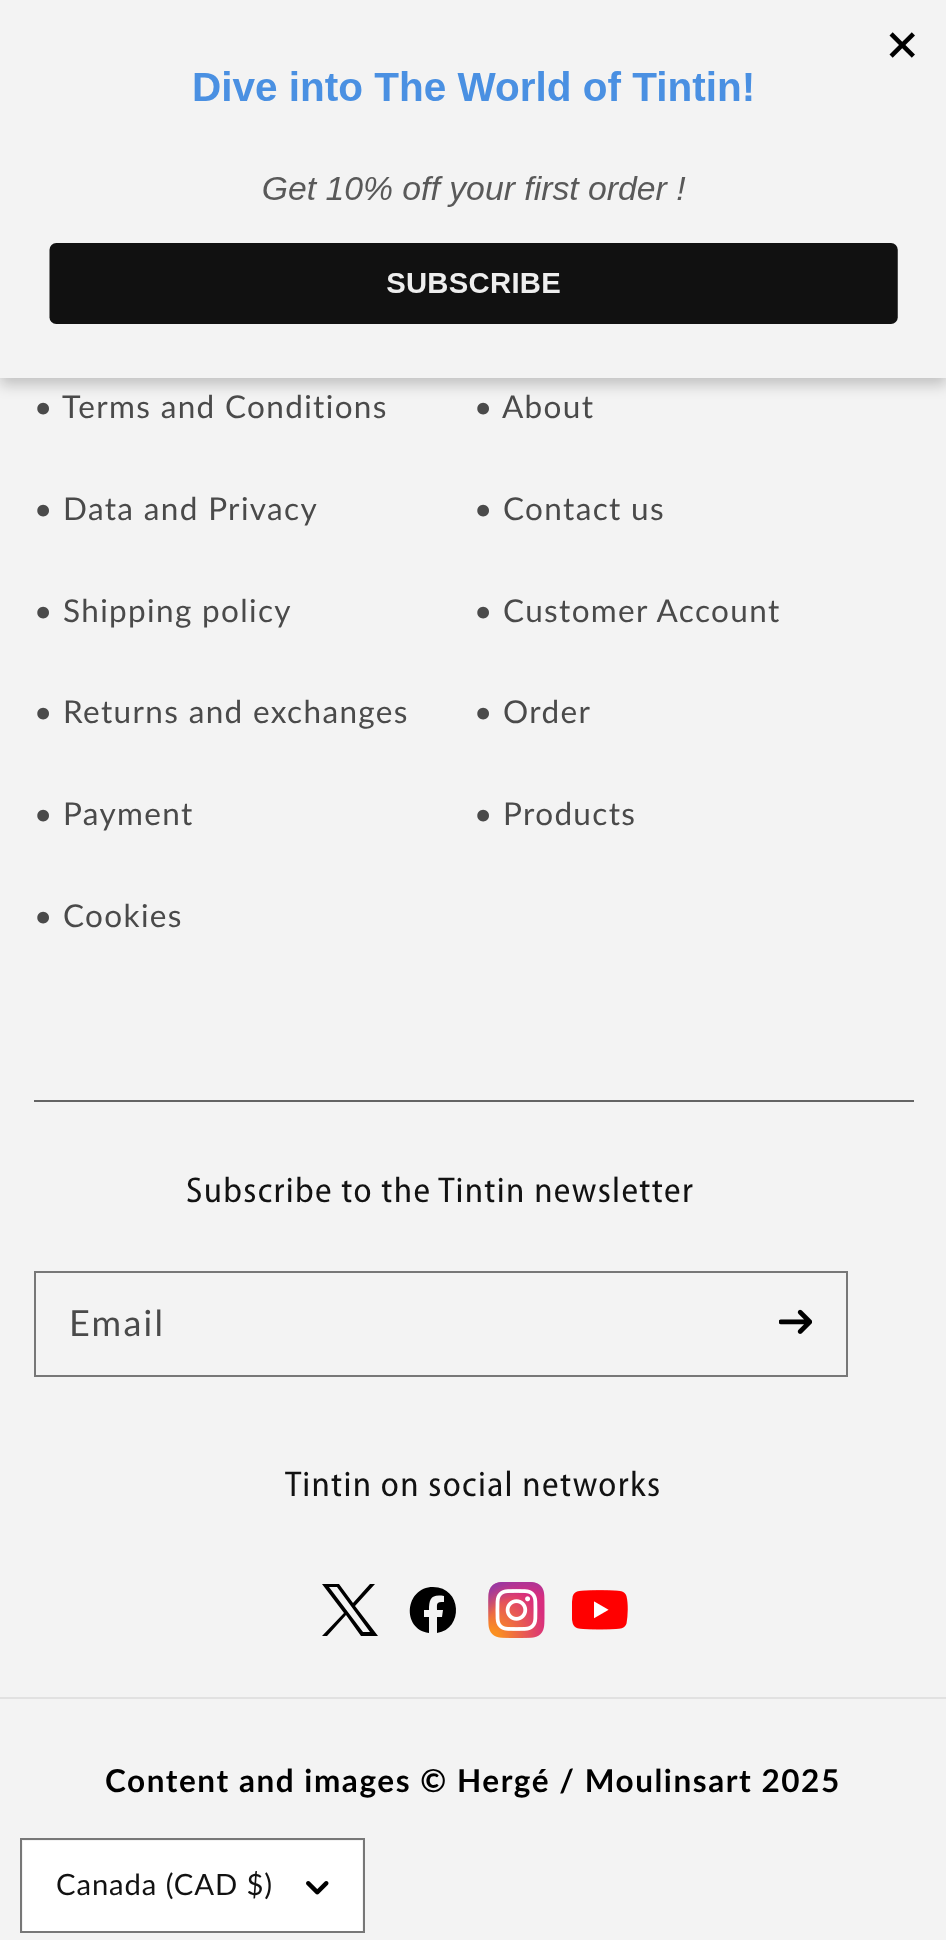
<svg xmlns="http://www.w3.org/2000/svg" xmlns:xlink="http://www.w3.org/1999/xlink" width="946" height="1940" viewBox="0 0 946 1940">
<style>
.cls-1{font:31.5px Lato;letter-spacing:1.35px;fill:#4a4a4a}
.cls-2{font:36px Myriad;letter-spacing:1.35px;fill:#121212}
.cls-3{font:36px Lato;letter-spacing:2.25px;fill:#4a4a4a}
.cls-4{font:bold 31.5px Lato;letter-spacing:1.55px;fill:#000000}
.cls-5{font:29.25px Lato;letter-spacing:0.9px;fill:#121212}
</style>
<rect width="100%" height="100%" fill="#f3f3f3"/>
<rect fill="#000000" fill-opacity="0.2" filter="blur(7px)" x="0" y="7" width="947" height="378"/>
<image xlink:href="image0.png" x="0" y="0" width="946" height="378"/>
<rect fill="#646464" x="34" y="1100" width="880" height="2"/>
<rect fill="none" stroke="#777777" stroke-width="2" x="35" y="1272" width="812" height="104"/>
<image xlink:href="image1.png" x="779" y="1309" width="33" height="25"/>
<path fill="#000000" d="M322 1584L344 1613L322 1636H327L346 1615L361 1636H378L355 1606L375 1584H370L353 1603L339 1584ZM329 1587H337L370 1632H363Z"/>
<path fill="#000000" d="M433 1587C405 1587 401 1629 429 1633V1617H424V1610H429C429 1599 431 1594 444 1596V1602C436 1602 437 1603 437 1610H443L442 1617H437V1633C464 1629 462 1587 433 1587Z"/>
<image xlink:href="image2.png" x="488" y="1582" width="57" height="56"/>
<image xlink:href="image3.png" x="572" y="1590" width="56" height="40"/>
<rect fill="#e1e1e1" x="0" y="1697" width="946" height="2"/>
<rect fill="none" stroke="#777777" stroke-width="2" x="21" y="1839" width="343" height="93"/>
<rect fill="#ffffff" x="23" y="1841" width="339" height="90"/>
<image xlink:href="image4.png" x="306" y="1881" width="23" height="14"/>
<text class="cls-1" x="34" y="418">• Terms and Conditions</text>
<text class="cls-1" x="34" y="520">• Data and Privacy</text>
<text class="cls-1" x="34" y="622">• Shipping policy</text>
<text class="cls-1" x="34" y="723">• Returns and exchanges</text>
<text class="cls-1" x="34" y="825">• Payment</text>
<text class="cls-1" x="34" y="927">• Cookies</text>
<text class="cls-1" x="474" y="418">• About</text>
<text class="cls-1" x="474" y="520">• Contact us</text>
<text class="cls-1" x="474" y="622">• Customer Account</text>
<text class="cls-1" x="474" y="723">• Order</text>
<text class="cls-1" x="474" y="825">• Products</text>
<text class="cls-2" x="186" y="1202">Subscribe to the Tintin newsletter</text>
<text class="cls-3" x="69" y="1336">Email</text>
<text class="cls-2" x="285" y="1496">Tintin on social networks</text>
<text class="cls-4" x="105" y="1792">Content and images © Hergé / Moulinsart 2025</text>
<text class="cls-5" x="56" y="1895">Canada (CAD $)</text>
</svg>
